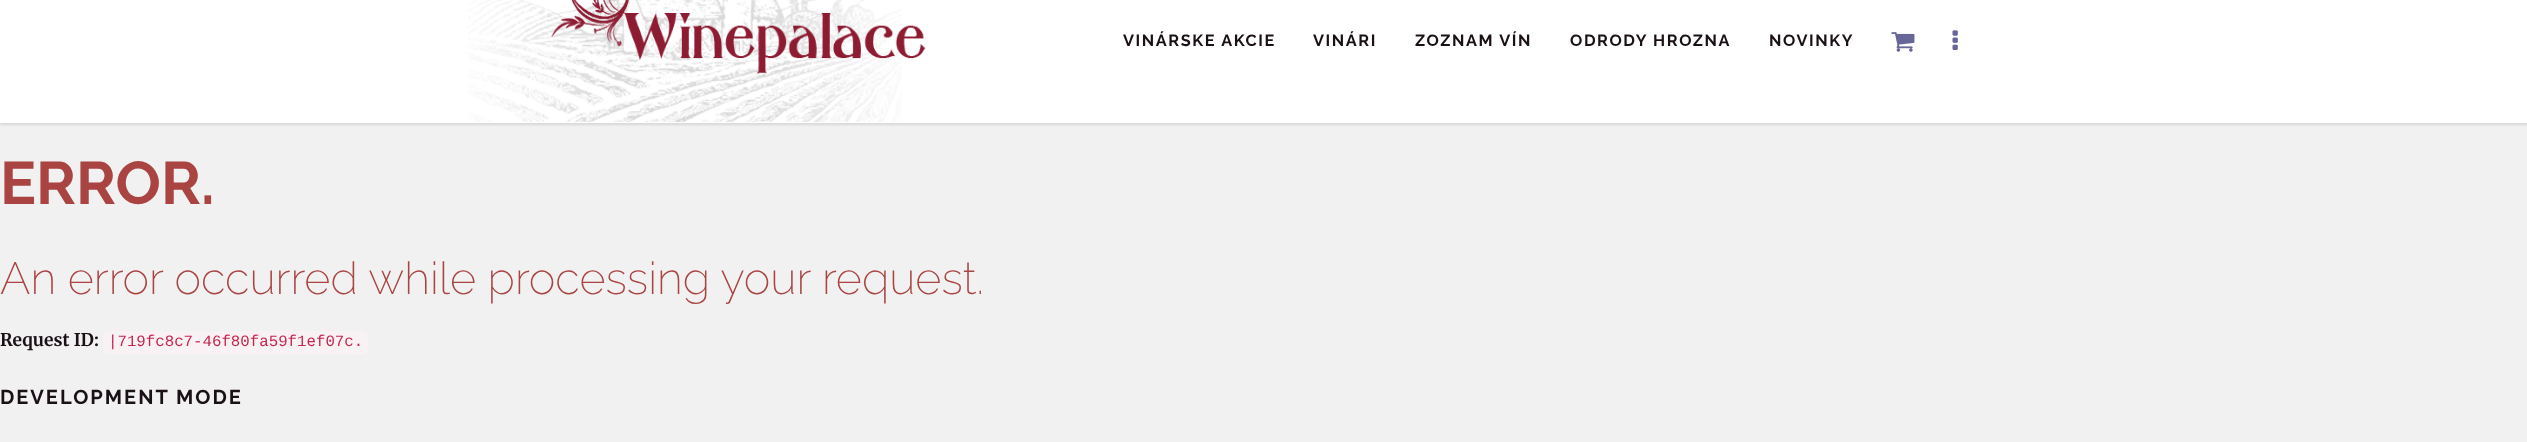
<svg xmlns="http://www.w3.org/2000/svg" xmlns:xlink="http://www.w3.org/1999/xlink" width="2527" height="442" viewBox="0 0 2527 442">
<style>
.cls-1{font:bold 16.25px Raleway;letter-spacing:1.6px;fill:#1a1117}
.cls-2{font:bold 60px Raleway;fill:#a94442}
.cls-3{font:200 45px Raleway;fill:#a94442}
.cls-4{font:bold 17.5px Merriweather;fill:#1a1117}
.cls-5{font:15.75px Liberation Mono;fill:#c7254e}
.cls-6{font:bold 20px Raleway;letter-spacing:2px;fill:#1a1117}
</style>
<rect width="100%" height="100%" fill="#f1f1f1"/>
<rect fill="#000000" fill-opacity="0.1" filter="blur(1px)" x="0" y="-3" width="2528" height="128"/>
<rect fill="#ffffff" x="0" y="0" width="2527" height="123"/>
<image xlink:href="image0.png" x="468" y="0" width="434" height="122"/>
<image xlink:href="image1.png" x="551" y="0" width="375" height="74"/>
<image xlink:href="image2.png" x="1891" y="32" width="24" height="20"/>
<image xlink:href="image3.png" x="1952" y="30" width="6" height="20"/>
<rect fill="#f9f2f4" x="103" y="331" width="265" height="23" rx="5"/>
<text class="cls-1" x="1123" y="46">VINÁRSKE AKCIE</text>
<text class="cls-1" x="1313" y="46">VINÁRI</text>
<text class="cls-1" x="1415" y="46">ZOZNAM VÍN</text>
<text class="cls-1" x="1570" y="46">ODRODY HROZNA</text>
<text class="cls-1" x="1769" y="46">NOVINKY</text>
<text class="cls-2" x="0" y="204">ERROR.</text>
<text class="cls-3" x="0" y="294">An error occurred while processing your request.</text>
<text class="cls-4" x="0" y="346">Request ID:</text>
<text class="cls-5" x="108" y="346">|719fc8c7-46f80fa59f1ef07c.</text>
<text class="cls-6" x="0" y="404">DEVELOPMENT MODE</text>
</svg>
